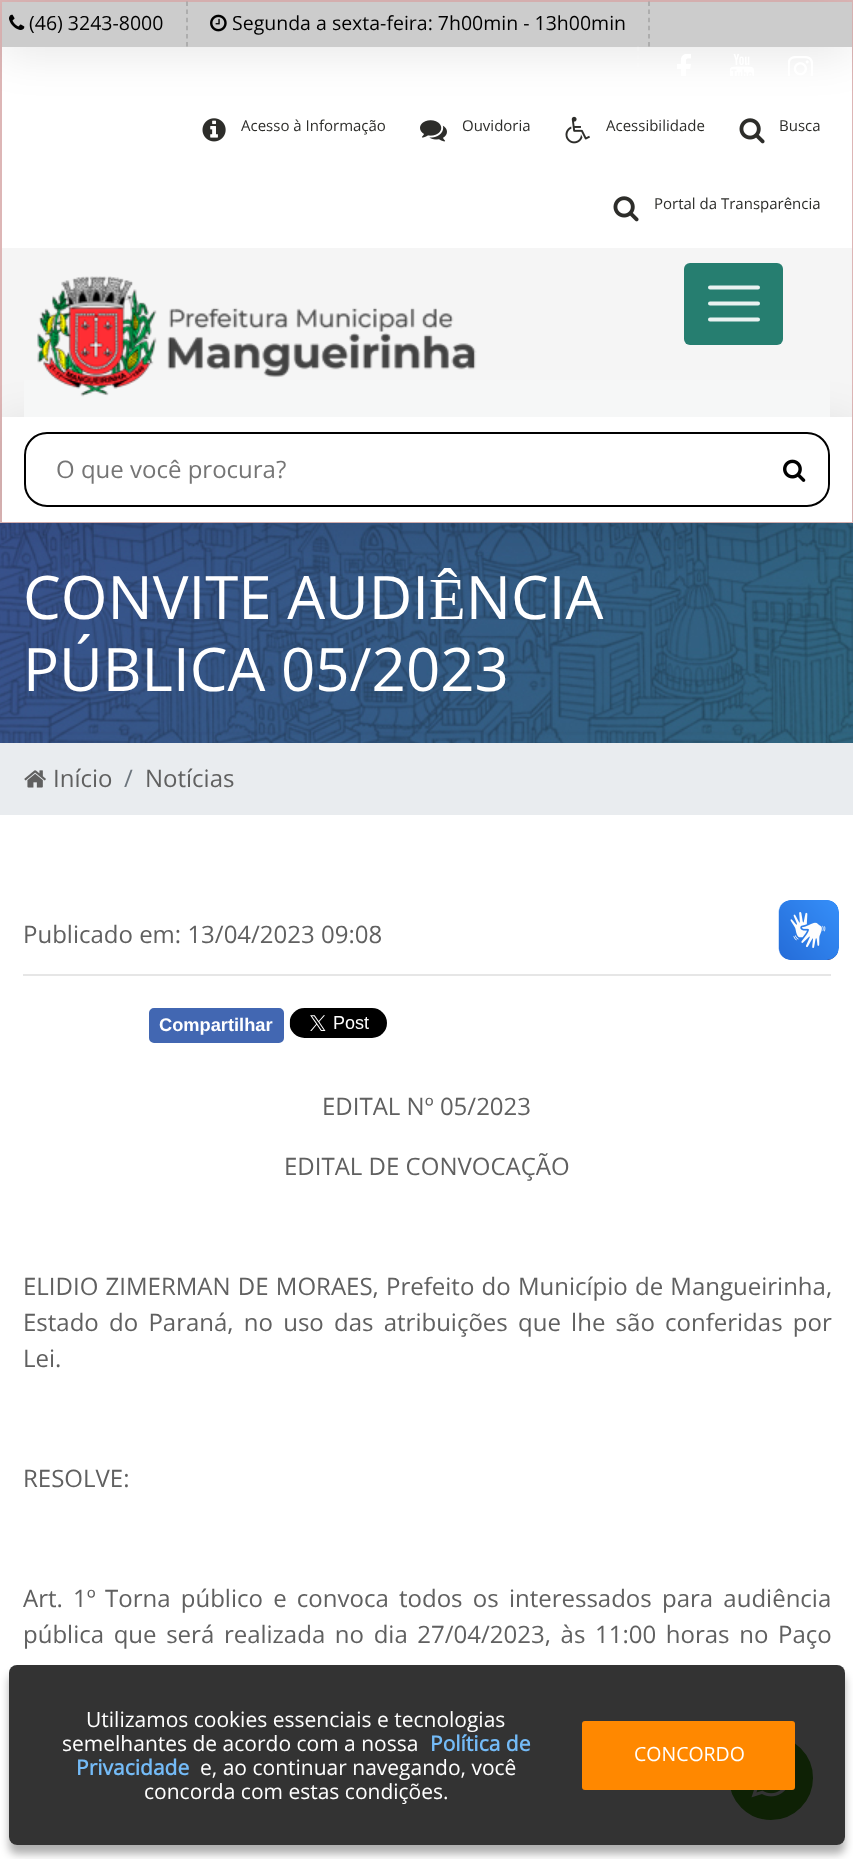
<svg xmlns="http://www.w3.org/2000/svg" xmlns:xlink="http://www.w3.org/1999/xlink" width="853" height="1859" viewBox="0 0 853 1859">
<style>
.cls-1{font:19.5px Open Sans;fill:#000000}
.cls-2{font:15px Open Sans;fill:#2d2d2a}
.cls-3{font:24px Open Sans;fill:#757575}
.cls-4{font:60px Open Sans;fill:#ffffff}
.cls-5{font:24px Open Sans;fill:#606060}
.cls-6{font:24px Open Sans;fill:#6c757d}
.cls-7{font:bold 18.25px Liberation Sans;fill:#ffffff}
.cls-8{font:21px Open Sans;fill:#ffffff}
.cls-9{font:bold 21px Open Sans;fill:#74bbf7}
.cls-10{font:19.5px Open Sans;fill:#ffffff}
</style>
<defs>
<clipPath id="clip1"><path d="M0 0H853V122H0ZM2 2H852V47H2Z" clip-rule="evenodd"/></clipPath>
<clipPath id="clip2"><path d="M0 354H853V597H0ZM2 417H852V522H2Z" clip-rule="evenodd"/></clipPath>
<clipPath id="clip3"><path d="M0 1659H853V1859H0ZM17 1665H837C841.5 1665 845 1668.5 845 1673V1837C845 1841.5 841.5 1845 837 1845H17C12.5 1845 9 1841.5 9 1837V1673C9 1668.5 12.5 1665 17 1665Z" clip-rule="evenodd"/></clipPath>
</defs>
<rect width="100%" height="100%" fill="#ffffff"/>
<rect fill="none" stroke="#8f0e0e" stroke-opacity="0.3" stroke-width="2" x="1" y="1" width="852" height="522"/>
<g clip-path="url(#clip1)">
<rect fill="#000000" fill-opacity="0.1" filter="blur(22.5px)" x="2" y="8" width="850" height="45"/>
</g>
<rect fill="#000000" fill-opacity="0.2" x="2" y="2" width="850" height="45"/>
<path fill="none" stroke="#a3a3a3" stroke-width="1.5" stroke-dasharray="4.5 3.6" d="M187 1.5V46.5"/>
<image xlink:href="image0.png" x="9" y="14" width="16" height="16"/>
<path fill="none" stroke="#a3a3a3" stroke-width="1.5" stroke-dasharray="4.5 3.6" d="M649 1.5V46.5"/>
<image xlink:href="image1.png" x="210" y="14" width="17" height="18"/>
<path fill="none" stroke="#ffffff" stroke-opacity="0.2" stroke-width="1.5" stroke-dasharray="4.5 3.6" d="M638 46.5V91.5"/>
<image xlink:href="image2.png" x="677" y="54" width="14" height="22"/>
<image xlink:href="image3.png" x="730" y="54" width="24" height="22"/>
<image xlink:href="image4.png" x="788" y="56" width="25" height="20"/>
<image xlink:href="image5.png" x="202" y="118" width="24" height="24"/>
<image xlink:href="image6.png" x="420" y="120" width="27" height="22"/>
<image xlink:href="image7.png" x="565" y="116" width="25" height="28"/>
<image xlink:href="image8.png" x="739" y="118" width="26" height="26"/>
<image xlink:href="image8.png" x="613" y="196" width="26" height="26"/>
<rect fill="#f5f5f5" x="2" y="248" width="850" height="169"/>
<image xlink:href="image11.png" x="0" y="523" width="853" height="220"/>
<g clip-path="url(#clip2)">
<rect fill="#000000" fill-opacity="0.1" filter="blur(22.5px)" x="2" y="423" width="850" height="105"/>
</g>
<rect fill="#f6f7f7" x="24" y="380" width="806" height="37"/>
<image xlink:href="image9.png" x="37" y="276" width="440" height="121"/>
<rect fill="#267e70" x="684" y="263" width="99" height="82" rx="6"/>
<path fill="none" stroke="#e9f2f1" stroke-width="4" stroke-linecap="round" d="M710 287.5H758M710 303.5H758M710 319.5H758"/>
<rect fill="none" stroke="#000000" stroke-width="2" x="25" y="433" width="804" height="73" rx="22"/>
<path fill="#ffffff" fill-opacity="0.7" d="M761 441H813C821.5 441 828 447.5 828 456V483C828 491.5 821.5 498 813 498H761Z"/>
<image xlink:href="image10.png" x="783" y="459" width="23" height="23"/>
<rect fill="#e9ecef" x="0" y="743" width="853" height="72"/>
<image xlink:href="image12.png" x="24" y="770" width="22" height="18"/>
<rect fill="#e6e6e6" x="23" y="974" width="808" height="2"/>
<rect fill="#4267b2" stroke="#4267b2" stroke-width="2" x="150" y="1009" width="133" height="33" rx="4"/>
<image xlink:href="image13.png" x="289" y="1008" width="98" height="30"/>
<image xlink:href="image14.png" x="778" y="900" width="61" height="60"/>
<image xlink:href="image15.png" x="779" y="900" width="60" height="60"/>
<circle fill="#45a51d" stroke="#ffffff" stroke-width="3" cx="771" cy="1778" r="43.5"/>
<image xlink:href="image16.png" x="751" y="1790" width="35" height="8"/>
<g clip-path="url(#clip3)">
<rect fill="#000000" fill-opacity="0.31" filter="blur(4.5px)" x="9" y="1674" width="836" height="180" rx="8"/>
</g>
<rect fill="#000000" fill-opacity="0.8" x="9" y="1665" width="836" height="180" rx="8"/>
<rect fill="#ff8800" x="582" y="1721" width="213" height="69" rx="3"/>
<text class="cls-1" x="29" y="30">(46) 3243-8000</text>
<text class="cls-1" x="232" y="30">Segunda a sexta-feira: 7h00min - 13h00min</text>
<text class="cls-2" x="241" y="131">Acesso à Informação</text>
<text class="cls-2" x="462" y="131">Ouvidoria</text>
<text class="cls-2" x="606" y="131">Acessibilidade</text>
<text class="cls-2" x="779" y="131">Busca</text>
<text class="cls-2" x="654" y="209">Portal da Transparência</text>
<text class="cls-3" x="56" y="478">O que você procura?</text>
<text class="cls-4"><tspan x="23" y="619">CONVITE AUDIÊNCIA</tspan><tspan x="23" y="691">PÚBLICA 05/2023</tspan></text>
<text class="cls-5" x="53" y="787">Início</text>
<text class="cls-6" x="124" y="787">/</text>
<text class="cls-5" x="145" y="787">Notícias</text>
<text class="cls-5" x="23" y="943">Publicado em: 13/04/2023 09:08</text>
<text class="cls-7" x="159" y="1031">Compartilhar</text>
<text class="cls-5" x="322" y="1115">EDITAL Nº 05/2023</text>
<text class="cls-5" x="284" y="1175">EDITAL DE CONVOCAÇÃO</text>
<text class="cls-5"><tspan x="23" y="1295" word-spacing="1">ELIDIO ZIMERMAN DE MORAES, Prefeito do Município de Mangueirinha,</tspan><tspan x="23" y="1331" word-spacing="4">Estado do Paraná, no uso das atribuições que lhe são conferidas por</tspan><tspan x="23" y="1367">Lei.</tspan></text>
<text class="cls-5" x="23" y="1487">RESOLVE:</text>
<text class="cls-5" x="23" y="1607" word-spacing="4">Art. 1º</text>
<text class="cls-5" x="105" y="1607" word-spacing="4">Torna público e convoca todos os interessados para audiência</text>
<text class="cls-5" x="23" y="1643" word-spacing="3.4">pública que será realizada no dia 27/04/2023, às 11:00 horas no Paço</text>
<text class="cls-8" x="86" y="1727">Utilizamos cookies essenciais e tecnologias</text>
<text class="cls-8" x="62" y="1751">semelhantes de acordo com a nossa</text>
<text class="cls-9" x="430" y="1751">Política de</text>
<text class="cls-9" x="76" y="1775">Privacidade</text>
<text class="cls-8" x="200" y="1775">e, ao continuar navegando, você</text>
<text class="cls-8" x="144" y="1799">concorda com estas condições.</text>
<text class="cls-10" x="634" y="1761">CONCORDO</text>
</svg>
